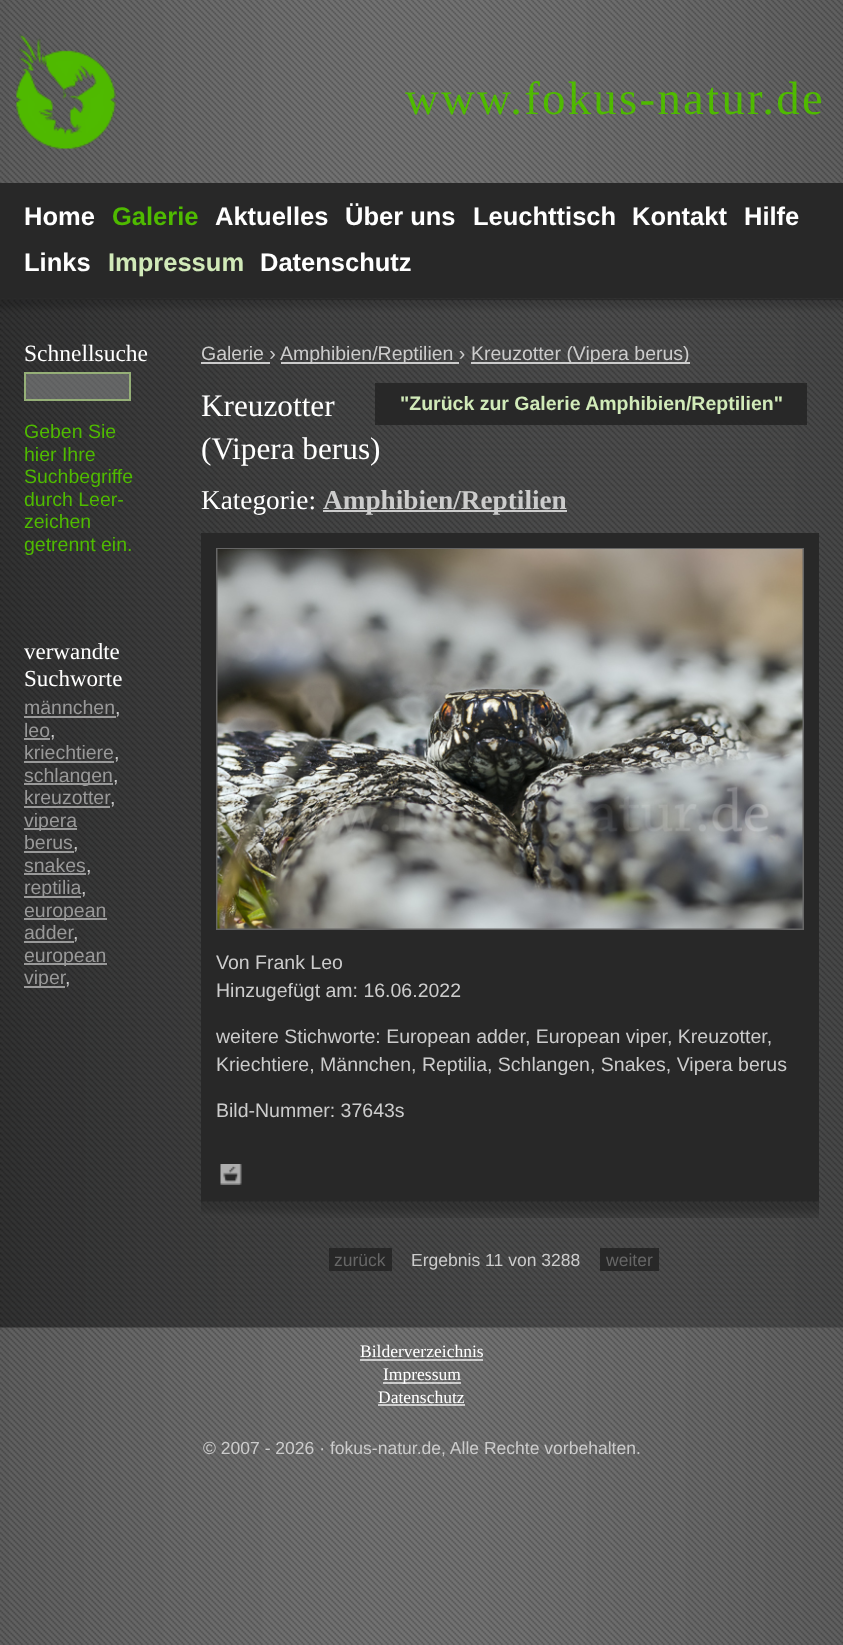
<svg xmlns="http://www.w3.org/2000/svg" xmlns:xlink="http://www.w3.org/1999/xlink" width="843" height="1645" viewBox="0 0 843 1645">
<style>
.cls-1{font:46.75px Liberation Serif;letter-spacing:2.3px;fill:#4fba00}
.cls-2{font:bold 25.5px Liberation Sans;fill:#ffffff}
.cls-3{font:bold 25.5px Liberation Sans;fill:#4fba00}
.cls-4{font:bold 25.5px Liberation Sans;fill:#d1eab9}
.cls-5{font:23.5px Liberation Serif;fill:#ffffff}
.cls-6{font:19.5px Liberation Sans;fill:#4fba00}
.cls-7{font:23px Liberation Serif;fill:#ffffff}
.cls-8{font:19.5px Liberation Sans;fill:#999999}
.cls-9{font:19.5px Liberation Sans;fill:#cccccc}
.cls-10{font:31.25px Liberation Serif;fill:#ffffff}
.cls-11{font:27.25px Liberation Serif;fill:#ffffff}
.cls-12{font:bold 27.25px Liberation Serif;fill:#cccccc}
.cls-13{font:17.55px Liberation Sans;fill:#666666}
.cls-14{font:17.55px Liberation Sans;fill:#cccccc}
.cls-15{font:bold 19.5px Liberation Sans;fill:#d1eab9}
.cls-16{font:17.55px Liberation Serif;fill:#ffffff}
</style>
<rect width="100%" height="100%" fill="#ffffff"/>
<image xlink:href="image0.png" x="0" y="0" width="843" height="1645"/>
<image xlink:href="image1.png" x="16" y="34" width="100" height="115"/>
<rect fill="#282828" x="0" y="183" width="843" height="116"/>
<image xlink:href="image2.png" x="0" y="298" width="843" height="1030"/>
<image xlink:href="image3.png" x="0" y="298" width="843" height="19"/>
<image xlink:href="image4.png" x="26" y="374" width="103" height="25"/>
<rect fill="none" stroke="#95af77" stroke-width="2" x="25" y="373" width="105" height="27"/>
<rect fill="#999999" x="24" y="716" width="92" height="2"/>
<rect fill="#999999" x="24" y="738" width="26" height="2"/>
<rect fill="#999999" x="24" y="761" width="90" height="2"/>
<rect fill="#999999" x="24" y="783" width="89" height="2"/>
<rect fill="#999999" x="24" y="806" width="86" height="2"/>
<rect fill="#999999" x="24" y="828" width="53" height="2"/>
<rect fill="#999999" x="24" y="851" width="50" height="2"/>
<rect fill="#999999" x="24" y="873" width="62" height="2"/>
<rect fill="#999999" x="24" y="896" width="57" height="2"/>
<rect fill="#999999" x="24" y="918" width="83" height="2"/>
<rect fill="#999999" x="24" y="941" width="50" height="2"/>
<rect fill="#999999" x="24" y="963" width="83" height="2"/>
<rect fill="#999999" x="24" y="986" width="41" height="2"/>
<rect fill="#cccccc" x="201" y="362" width="69" height="2"/>
<rect fill="#cccccc" x="281" y="362" width="178" height="2"/>
<rect fill="#cccccc" x="471" y="362" width="219" height="2"/>
<rect fill="#cccccc" x="323" y="510" width="244" height="2"/>
<rect fill="#282828" x="201" y="533" width="618" height="669"/>
<rect fill="none" stroke="#666666" stroke-width="2" x="217" y="549" width="586" height="380"/>
<image xlink:href="image5.png" x="217" y="549" width="586" height="380"/>
<image xlink:href="image6.png" x="220" y="1164" width="22" height="21"/>
<image xlink:href="image7.png" x="201" y="1201" width="618" height="17"/>
<rect fill="#282828" x="329" y="1248" width="63" height="23"/>
<rect fill="#282828" x="600" y="1248" width="59" height="23"/>
<rect fill="#282828" x="375" y="383" width="432" height="42"/>
<rect fill="#cccccc" x="360" y="1359" width="123" height="2"/>
<rect fill="#cccccc" x="383" y="1382" width="78" height="2"/>
<rect fill="#cccccc" x="378" y="1404" width="87" height="2"/>
<text class="cls-1" x="405" y="114">www.fokus-natur.de</text>
<text class="cls-2" x="24" y="225">Home</text>
<text class="cls-3" x="112" y="225">Galerie</text>
<text class="cls-2" x="215" y="225">Aktuelles</text>
<text class="cls-2" x="345" y="225">Über uns</text>
<text class="cls-2" x="473" y="225">Leuchttisch</text>
<text class="cls-2" x="632" y="225">Kontakt</text>
<text class="cls-2" x="744" y="225">Hilfe</text>
<text class="cls-2" x="24" y="271">Links</text>
<text class="cls-4" x="108" y="271">Impressum</text>
<text class="cls-2" x="260" y="271">Datenschutz</text>
<text class="cls-5" x="24" y="361">Schnellsuche</text>
<text class="cls-6"><tspan x="24" y="438">Geben Sie</tspan><tspan x="24" y="461">hier Ihre</tspan><tspan x="24" y="483">Suchbegriffe</tspan><tspan x="24" y="506">durch Leer-</tspan><tspan x="24" y="528">zeichen</tspan><tspan x="24" y="551">getrennt ein.</tspan></text>
<text class="cls-7"><tspan x="24" y="659">verwandte</tspan><tspan x="24" y="686">Suchworte</tspan></text>
<text class="cls-8" x="24" y="714">männchen</text>
<text class="cls-9" x="115" y="714">,</text>
<text class="cls-8" x="24" y="737">leo</text>
<text class="cls-9" x="50" y="737">,</text>
<text class="cls-8" x="24" y="759">kriechtiere</text>
<text class="cls-9" x="114" y="759">,</text>
<text class="cls-8" x="24" y="782">schlangen</text>
<text class="cls-9" x="113" y="782">,</text>
<text class="cls-8" x="24" y="804">kreuzotter</text>
<text class="cls-9" x="110" y="804">,</text>
<text class="cls-8"><tspan x="24" y="827">vipera</tspan><tspan x="24" y="849">berus</tspan></text>
<text class="cls-9" x="73" y="849">,</text>
<text class="cls-8" x="24" y="872">snakes</text>
<text class="cls-9" x="86" y="872">,</text>
<text class="cls-8" x="24" y="894">reptilia</text>
<text class="cls-9" x="81" y="894">,</text>
<text class="cls-8"><tspan x="24" y="917">european</tspan><tspan x="24" y="939">adder</tspan></text>
<text class="cls-9" x="73" y="939">,</text>
<text class="cls-8"><tspan x="24" y="962">european</tspan><tspan x="24" y="984">viper</tspan></text>
<text class="cls-9" x="65" y="984">,</text>
<text class="cls-9" x="201" y="360">Galerie ›</text>
<text class="cls-9" x="280" y="360">Amphibien/Reptilien ›</text>
<text class="cls-9" x="471" y="360">Kreuzotter (Vipera berus)</text>
<text class="cls-10"><tspan x="201" y="416">Kreuzotter</tspan><tspan x="201" y="459">(Vipera berus)</tspan></text>
<text class="cls-11" x="201" y="509">Kategorie:</text>
<text class="cls-12" x="323" y="509">Amphibien/Reptilien</text>
<text class="cls-9"><tspan x="216" y="969">Von Frank Leo</tspan><tspan x="216" y="997">Hinzugefügt am: 16.06.2022</tspan></text>
<text class="cls-9"><tspan x="216" y="1043">weitere Stichworte: European adder, European viper, Kreuzotter,</tspan><tspan x="216" y="1071">Kriechtiere, Männchen, Reptilia, Schlangen, Snakes, Vipera berus</tspan></text>
<text class="cls-9" x="216" y="1117">Bild-Nummer: 37643s</text>
<text class="cls-13" x="334" y="1266">zurück</text>
<text class="cls-14" x="411" y="1266">Ergebnis 11 von 3288</text>
<text class="cls-13" x="606" y="1266">weiter</text>
<text class="cls-15" x="400" y="410">"Zurück zur Galerie Amphibien/Reptilien"</text>
<text class="cls-16" x="360" y="1357">Bilderverzeichnis</text>
<text class="cls-16" x="383" y="1380">Impressum</text>
<text class="cls-16" x="378" y="1403">Datenschutz</text>
<text class="cls-14" x="203" y="1454">© 2007 - 2026 · fokus-natur.de, Alle Rechte vorbehalten.</text>
</svg>
